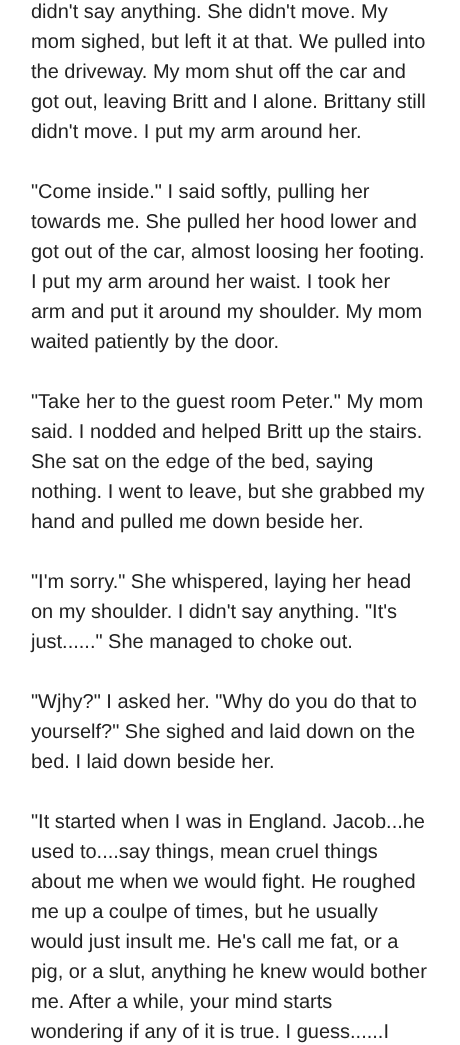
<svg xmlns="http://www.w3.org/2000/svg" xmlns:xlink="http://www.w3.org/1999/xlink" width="460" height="1045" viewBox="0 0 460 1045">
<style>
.cls-1{font:20px Liberation Sans;fill:#222222}
</style>
<rect width="100%" height="100%" fill="#ffffff"/>
<text class="cls-1"><tspan x="31" y="18">didn't say anything. She didn't move. My</tspan><tspan x="31" y="48">mom sighed, but left it at that. We pulled into</tspan><tspan x="31" y="78">the driveway. My mom shut off the car and</tspan><tspan x="31" y="108">got out, leaving Britt and I alone. Brittany still</tspan><tspan x="31" y="138">didn't move. I put my arm around her.</tspan></text>
<text class="cls-1"><tspan x="31" y="198">"Come inside." I said softly, pulling her</tspan><tspan x="31" y="228">towards me. She pulled her hood lower and</tspan><tspan x="31" y="258">got out of the car, almost loosing her footing.</tspan><tspan x="31" y="288">I put my arm around her waist. I took her</tspan><tspan x="31" y="318">arm and put it around my shoulder. My mom</tspan><tspan x="31" y="348">waited patiently by the door.</tspan></text>
<text class="cls-1"><tspan x="31" y="408">"Take her to the guest room Peter." My mom</tspan><tspan x="31" y="438">said. I nodded and helped Britt up the stairs.</tspan><tspan x="31" y="468">She sat on the edge of the bed, saying</tspan><tspan x="31" y="498">nothing. I went to leave, but she grabbed my</tspan><tspan x="31" y="528">hand and pulled me down beside her.</tspan></text>
<text class="cls-1"><tspan x="31" y="588">"I'm sorry." She whispered, laying her head</tspan><tspan x="31" y="618">on my shoulder. I didn't say anything. "It's</tspan><tspan x="31" y="648">just......" She managed to choke out.</tspan></text>
<text class="cls-1"><tspan x="31" y="708">"Wjhy?" I asked her. "Why do you do that to</tspan><tspan x="31" y="738">yourself?" She sighed and laid down on the</tspan><tspan x="31" y="768">bed. I laid down beside her.</tspan></text>
<text class="cls-1"><tspan x="31" y="828">"It started when I was in England. Jacob...he</tspan><tspan x="31" y="858">used to....say things, mean cruel things</tspan><tspan x="31" y="888">about me when we would fight. He roughed</tspan><tspan x="31" y="918">me up a coulpe of times, but he usually</tspan><tspan x="31" y="948">would just insult me. He's call me fat, or a</tspan><tspan x="31" y="978">pig, or a slut, anything he knew would bother</tspan><tspan x="31" y="1008">me. After a while, your mind starts</tspan><tspan x="31" y="1038">wondering if any of it is true. I guess......I</tspan></text>
</svg>
